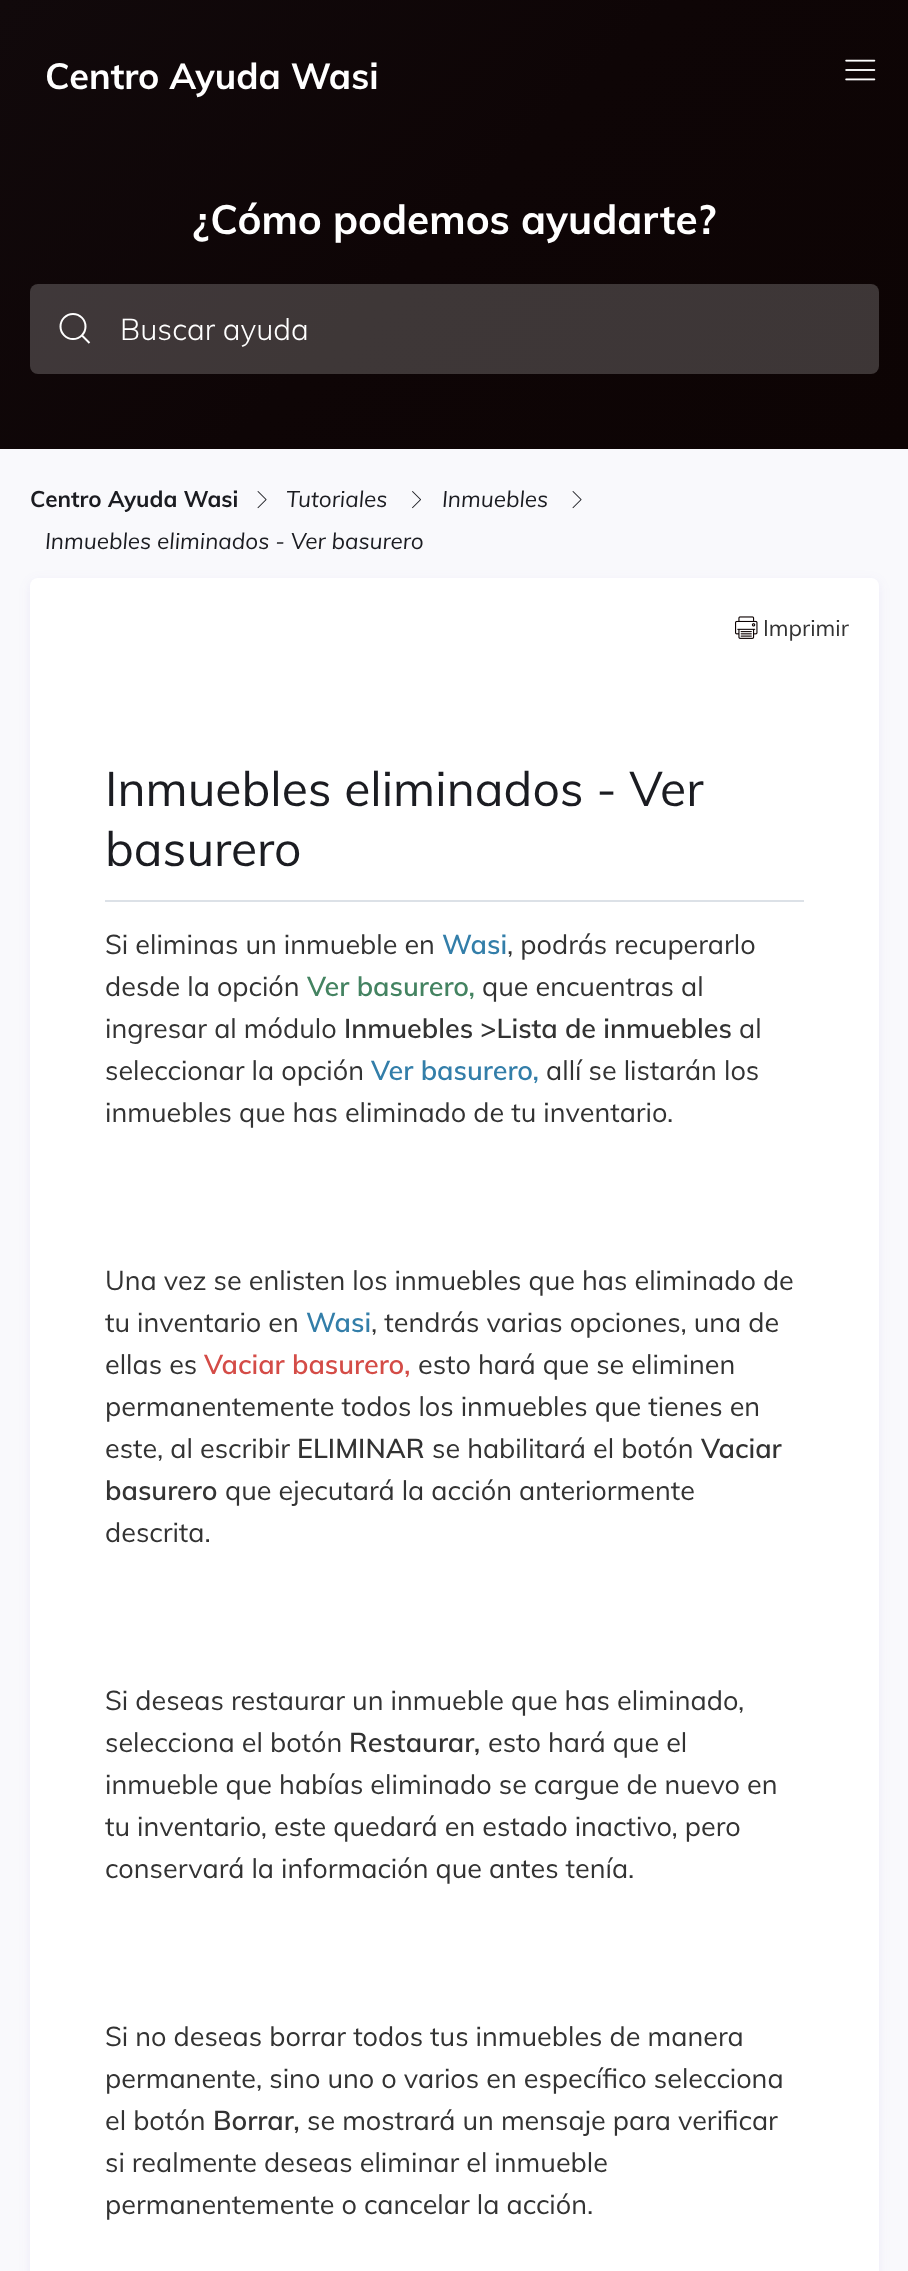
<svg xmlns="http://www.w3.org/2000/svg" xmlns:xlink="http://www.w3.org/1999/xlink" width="908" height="2271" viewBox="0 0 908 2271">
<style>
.cls-1{font:bold 36px Muli;fill:#ffffff}
.cls-2{font:bold 40.5px Muli;fill:#ffffff}
.cls-3{font:300 30px Muli;fill:#ffffff}
.cls-4{font:bold 22.5px Muli;fill:#1b1c21}
.cls-5{font:italic 22.5px Muli;fill:#1b1c21}
.cls-6{font:22.5px Muli;fill:#333333}
.cls-7{font:48px Muli;fill:#1b1c21}
.cls-8{font:27px Muli;fill:#333333}
.cls-9{font:600 27px Muli;fill:#337ea9}
.cls-10{font:600 27px Muli;fill:#448361}
.cls-11{font:600 27px Muli;fill:#333333}
.cls-12{font:600 27px Muli;fill:#d44c47}
</style>
<defs>
<linearGradient id="g1" gradientUnits="userSpaceOnUse" x1="115" y1="-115" x2="794" y2="564"><stop offset="0" stop-color="#11090b"/><stop offset="0.5" stop-color="#0e0506"/><stop offset="1" stop-color="#0d0404"/></linearGradient>
</defs>
<rect width="100%" height="100%" fill="#ffffff"/>
<rect fill="url(#g1)" x="0" y="0" width="908" height="449"/>
<image xlink:href="image0.png" x="845" y="59" width="31" height="22"/>
<rect fill="#ffffff" fill-opacity="0.2" x="30" y="284" width="849" height="90" rx="8"/>
<circle fill="none" stroke="#ffffff" stroke-width="2" cx="73" cy="326.5" r="12.5"/>
<path fill="none" stroke="#ffffff" stroke-width="2" d="M82 335.5L89.5 343Z"/>
<rect fill="#f9f9fc" x="0" y="449" width="908" height="1822"/>
<image xlink:href="image1.png" x="257" y="491" width="10" height="18"/>
<image xlink:href="image2.png" x="412" y="491" width="9" height="18"/>
<image xlink:href="image1.png" x="572" y="491" width="10" height="18"/>
<rect fill="#583abc" fill-opacity="0.08" filter="blur(6px)" x="30" y="581" width="849" height="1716" rx="8"/>
<rect fill="#ffffff" x="30" y="578" width="849" height="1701" rx="8"/>
<image xlink:href="image3.png" x="735" y="616" width="23" height="23"/>
<rect fill="#dce1e7" x="105" y="900" width="699" height="2"/>
<text class="cls-1" x="45" y="89">Centro Ayuda Wasi</text>
<text class="cls-2" x="193" y="234">¿Cómo podemos ayudarte?</text>
<text class="cls-3" x="120" y="340">Buscar ayuda</text>
<text class="cls-4" x="30" y="507">Centro Ayuda Wasi</text>
<text class="cls-5" x="286" y="507">Tutoriales</text>
<text class="cls-5" x="442" y="507">Inmuebles</text>
<text class="cls-5" x="45" y="549">Inmuebles eliminados - Ver basurero</text>
<text class="cls-6" x="763" y="636">Imprimir</text>
<text class="cls-7"><tspan x="105" y="806">Inmuebles eliminados - Ver</tspan><tspan x="105" y="866">basurero</tspan></text>
<text class="cls-8" x="105" y="954">Si eliminas un inmueble en</text>
<text class="cls-9" x="442" y="954">Wasi</text>
<text class="cls-8" x="507" y="954">, podrás recuperarlo</text>
<text class="cls-8" x="105" y="996">desde la opción</text>
<text class="cls-10" x="307" y="996">Ver basurero,</text>
<text class="cls-8" x="482" y="996">que encuentras al</text>
<text class="cls-8" x="105" y="1038">ingresar al módulo</text>
<text class="cls-11" x="344" y="1038">Inmuebles &gt;Lista de inmuebles</text>
<text class="cls-8" x="739" y="1038">al</text>
<text class="cls-8" x="105" y="1080">seleccionar la opción</text>
<text class="cls-9" x="371" y="1080">Ver basurero,</text>
<text class="cls-8" x="546" y="1080">allí se listarán los</text>
<text class="cls-8" x="105" y="1122">inmuebles que has eliminado de tu inventario.</text>
<text class="cls-8"><tspan x="105" y="1290">Una vez se enlisten los inmuebles que has eliminado de</tspan><tspan x="105" y="1332">tu inventario en</tspan></text>
<text class="cls-9" x="306" y="1332">Wasi</text>
<text class="cls-8" x="371" y="1332">, tendrás varias opciones, una de</text>
<text class="cls-8" x="105" y="1374">ellas es</text>
<text class="cls-12" x="204" y="1374">Vaciar basurero,</text>
<text class="cls-8" x="418" y="1374">esto hará que se eliminen</text>
<text class="cls-8"><tspan x="105" y="1416">permanentemente todos los inmuebles que tienes en</tspan><tspan x="105" y="1458">este, al escribir</tspan></text>
<text class="cls-11" x="297" y="1458">ELIMINAR</text>
<text class="cls-8" x="432" y="1458">se habilitará el botón</text>
<text class="cls-11" x="701" y="1458">Vaciar</text>
<text class="cls-11" x="105" y="1500">basurero</text>
<text class="cls-8" x="225" y="1500">que ejecutará la acción anteriormente</text>
<text class="cls-8" x="105" y="1542">descrita.</text>
<text class="cls-8"><tspan x="105" y="1710">Si deseas restaurar un inmueble que has eliminado,</tspan><tspan x="105" y="1752">selecciona el botón</tspan></text>
<text class="cls-11" x="349" y="1752">Restaurar,</text>
<text class="cls-8" x="488" y="1752">esto hará que el</text>
<text class="cls-8"><tspan x="105" y="1794">inmueble que habías eliminado se cargue de nuevo en</tspan><tspan x="105" y="1836">tu inventario, este quedará en estado inactivo, pero</tspan><tspan x="105" y="1878">conservará la información que antes tenía.</tspan></text>
<text class="cls-8"><tspan x="105" y="2046">Si no deseas borrar todos tus inmuebles de manera</tspan><tspan x="105" y="2088">permanente, sino uno o varios en específico selecciona</tspan><tspan x="105" y="2130">el botón</tspan></text>
<text class="cls-11" x="213" y="2130">Borrar,</text>
<text class="cls-8" x="307" y="2130">se mostrará un mensaje para verificar</text>
<text class="cls-8"><tspan x="105" y="2172">si realmente deseas eliminar el inmueble</tspan><tspan x="105" y="2214">permanentemente o cancelar la acción.</tspan></text>
</svg>
